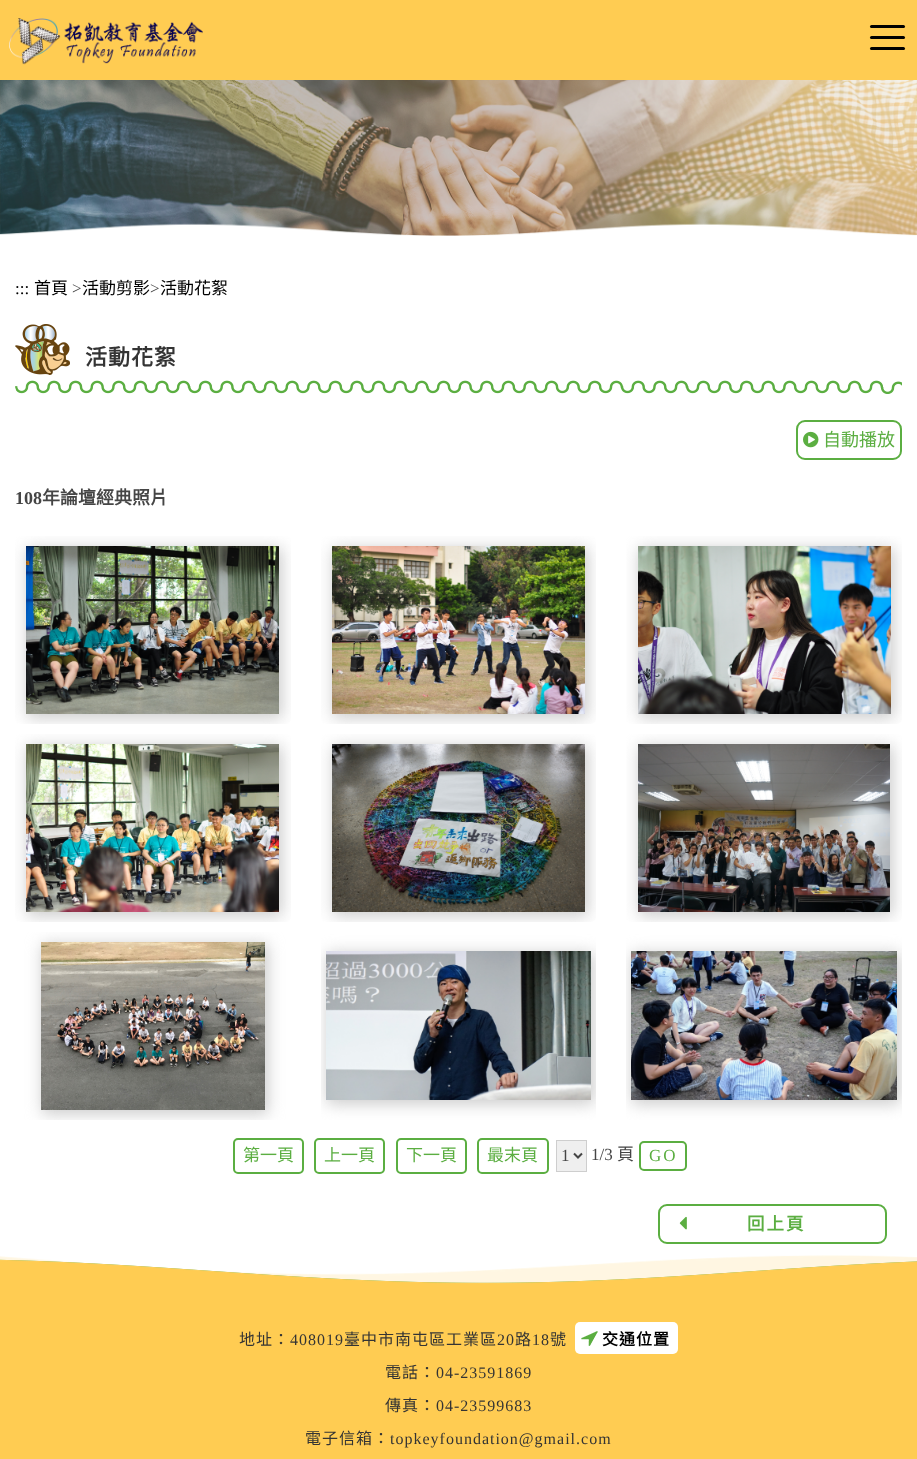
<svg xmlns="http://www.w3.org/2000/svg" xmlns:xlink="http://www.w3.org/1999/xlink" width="917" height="1459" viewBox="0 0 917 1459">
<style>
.cls-1{font:17px Liberation Serif;fill:#000000}
.cls-2{font:17px Noto Sans CJK TC;fill:#000000}
.cls-3{font:17px Liberation Serif;fill:#454545}
.cls-4{font:bold 22px Noto Sans CJK TC;letter-spacing:1px;fill:#343434}
.cls-5{font:18px Noto Sans CJK TC;fill:#5bae41}
.cls-6{font:bold 18px Liberation Serif;fill:#454545}
.cls-7{font:bold 18px Noto Sans CJK TC;fill:#454545}
.cls-8{font:17px Noto Sans CJK TC;fill:#5bae41}
.cls-9{font:17px Noto Sans CJK TC;fill:#454545}
.cls-10{font:17px Liberation Serif;letter-spacing:2px;fill:#5bae41}
.cls-11{font:bold 17.5px Noto Sans CJK TC;letter-spacing:2px;fill:#5bae41}
.cls-12{font:16px Noto Sans CJK TC;letter-spacing:1px;fill:#343434}
.cls-13{font:16px Liberation Serif;letter-spacing:1px;fill:#343434}
.cls-14{font:bold 16px Noto Sans CJK TC;letter-spacing:1px;fill:#000000}
</style>
<defs>
<clipPath id="clip1"><rect x="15" y="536" width="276" height="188" rx="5"/></clipPath>
<clipPath id="clip2"><rect x="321" y="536" width="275" height="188" rx="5"/></clipPath>
<clipPath id="clip3"><rect x="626" y="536" width="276" height="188" rx="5"/></clipPath>
<clipPath id="clip4"><rect x="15" y="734" width="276" height="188" rx="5"/></clipPath>
<clipPath id="clip5"><rect x="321" y="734" width="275" height="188" rx="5"/></clipPath>
<clipPath id="clip6"><rect x="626" y="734" width="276" height="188" rx="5"/></clipPath>
<clipPath id="clip7"><rect x="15" y="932" width="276" height="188" rx="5"/></clipPath>
<clipPath id="clip8"><rect x="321" y="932" width="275" height="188" rx="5"/></clipPath>
<clipPath id="clip9"><rect x="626" y="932" width="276" height="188" rx="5"/></clipPath>
</defs>
<rect width="100%" height="100%" fill="#ffffff"/>
<rect fill="#ffcc52" x="0" y="0" width="917" height="80"/>
<image xlink:href="image0.png" x="9" y="18" width="194" height="47"/>
<rect fill="#000000" x="870" y="25" width="35" height="3" rx="1.5"/>
<rect fill="#000000" x="870" y="36" width="35" height="3" rx="1.5"/>
<rect fill="#000000" x="870" y="47" width="35" height="3" rx="1.5"/>
<image xlink:href="image1.png" x="0" y="80" width="917" height="156"/>
<image xlink:href="image2.png" x="15" y="324" width="887" height="70"/>
<rect fill="none" stroke="#5bae41" stroke-width="2" x="797" y="421" width="104" height="38" rx="8"/>
<image xlink:href="image3.png" x="803" y="431" width="16" height="17"/>
<g clip-path="url(#clip1)">
<rect fill="#cbcbcb" filter="blur(8px)" x="27" y="548" width="255" height="170"/>
</g>
<image xlink:href="image4.png" x="26" y="546" width="253" height="168"/>
<g clip-path="url(#clip2)">
<rect fill="#cbcbcb" filter="blur(8px)" x="333" y="548" width="255" height="170"/>
</g>
<image xlink:href="image5.png" x="332" y="546" width="253" height="168"/>
<g clip-path="url(#clip3)">
<rect fill="#cbcbcb" filter="blur(8px)" x="639" y="548" width="255" height="170"/>
</g>
<image xlink:href="image6.png" x="638" y="546" width="253" height="168"/>
<g clip-path="url(#clip4)">
<rect fill="#cbcbcb" filter="blur(8px)" x="27" y="746" width="255" height="170"/>
</g>
<image xlink:href="image7.png" x="26" y="744" width="253" height="168"/>
<g clip-path="url(#clip5)">
<rect fill="#cbcbcb" filter="blur(8px)" x="333" y="746" width="255" height="170"/>
</g>
<image xlink:href="image8.png" x="332" y="744" width="253" height="168"/>
<g clip-path="url(#clip6)">
<rect fill="#cbcbcb" filter="blur(8px)" x="639" y="746" width="254" height="170"/>
</g>
<image xlink:href="image9.png" x="638" y="744" width="252" height="168"/>
<rect fill="none" stroke="#5bae41" stroke-width="2" x="234" y="1139" width="69" height="34" rx="4"/>
<g clip-path="url(#clip7)">
<rect fill="#cbcbcb" filter="blur(8px)" x="42" y="944" width="226" height="170"/>
</g>
<image xlink:href="image10.png" x="41" y="942" width="224" height="168"/>
<g clip-path="url(#clip8)">
<rect fill="#cbcbcb" filter="blur(8px)" x="327" y="953" width="267" height="151"/>
</g>
<image xlink:href="image11.png" x="326" y="951" width="265" height="149"/>
<g clip-path="url(#clip9)">
<rect fill="#cbcbcb" filter="blur(8px)" x="632" y="953" width="268" height="151"/>
</g>
<image xlink:href="image12.png" x="631" y="951" width="266" height="149"/>
<rect fill="none" stroke="#5bae41" stroke-width="2" x="315" y="1139" width="69" height="34" rx="4"/>
<rect fill="none" stroke="#5bae41" stroke-width="2" x="397" y="1139" width="69" height="34" rx="4"/>
<rect fill="none" stroke="#5bae41" stroke-width="2" x="478" y="1139" width="70" height="34" rx="4"/>
<rect fill="#efefef" stroke="#cecece" x="556.5" y="1140.5" width="30" height="31"/>
<path fill="none" stroke="#454545" stroke-width="2" d="M574 1153.5L578 1157.5L582 1153.5"/>
<rect fill="none" stroke="#5bae41" stroke-width="2" x="640" y="1142" width="46" height="28" rx="4"/>
<rect fill="none" stroke="#5bae41" stroke-width="2" x="659" y="1205" width="227" height="38" rx="8"/>
<image xlink:href="image13.png" x="679" y="1216" width="8" height="14"/>
<image xlink:href="image14.png" x="0" y="1255" width="917" height="204"/>
<rect fill="#ffffff" x="575" y="1322" width="103" height="32" rx="5"/>
<image xlink:href="image15.png" x="581" y="1331" width="17" height="15"/>
<text class="cls-1" x="15" y="294">:::</text>
<text class="cls-2" x="34" y="294">首頁</text>
<text class="cls-3" x="72" y="294">&gt;</text>
<text class="cls-2" x="82" y="294">活動剪影</text>
<text class="cls-3" x="150" y="294">&gt;</text>
<text class="cls-2" x="160" y="294">活動花絮</text>
<text class="cls-4" x="85" y="365">活動花絮</text>
<text class="cls-5" x="823" y="446">自動播放</text>
<text class="cls-6" x="15" y="504">108</text>
<text class="cls-7" x="42" y="504">年論壇經典照片</text>
<text class="cls-8" x="243" y="1161">第一頁</text>
<text class="cls-8" x="324" y="1161">上一頁</text>
<text class="cls-8" x="406" y="1161">下一頁</text>
<text class="cls-8" x="487" y="1161">最末頁</text>
<text class="cls-3" x="561" y="1161">1</text>
<text class="cls-3" x="591" y="1160">1/3</text>
<text class="cls-9" x="617" y="1160">頁</text>
<text class="cls-10" x="649" y="1161">GO</text>
<text class="cls-11" x="747" y="1230">回上頁</text>
<text class="cls-12" x="239" y="1345">地址：</text>
<text class="cls-13" x="290" y="1345">408019</text>
<text class="cls-12" x="344" y="1345">臺中市南屯區工業區</text>
<text class="cls-13" x="497" y="1345">20</text>
<text class="cls-12" x="515" y="1345">路</text>
<text class="cls-13" x="532" y="1345">18</text>
<text class="cls-12" x="550" y="1345">號</text>
<text class="cls-14" x="602" y="1345">交通位置</text>
<text class="cls-12" x="385" y="1378">電話：</text>
<text class="cls-13" x="436" y="1378">04-23591869</text>
<text class="cls-12" x="385" y="1411">傳真：</text>
<text class="cls-13" x="436" y="1411">04-23599683</text>
<text class="cls-12" x="305" y="1444">電子信箱：</text>
<text class="cls-13" x="390" y="1444">topkeyfoundation@gmail.com</text>
</svg>
